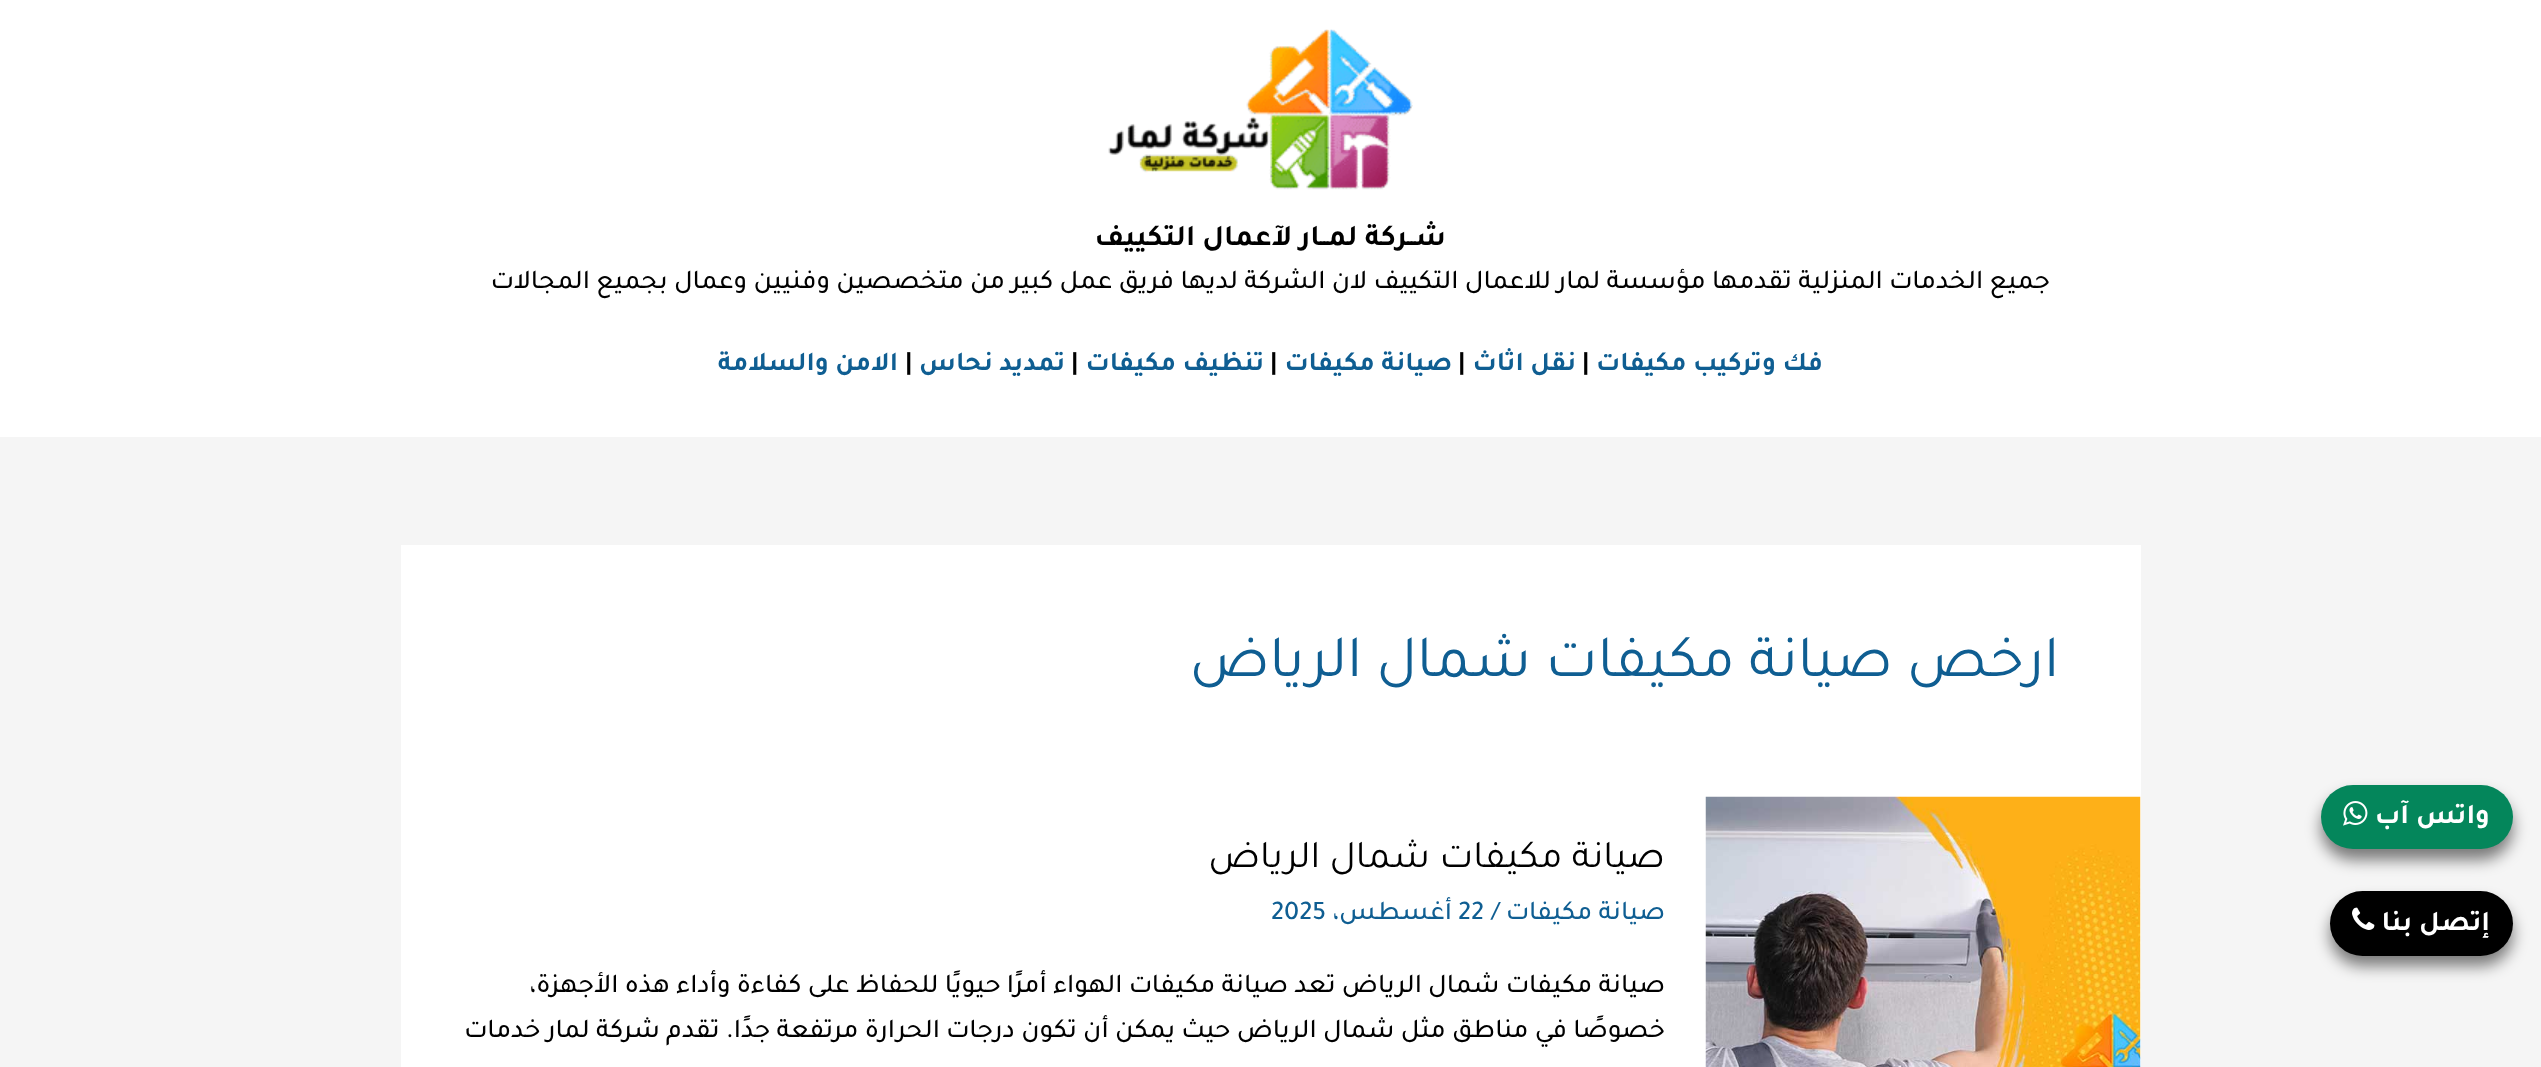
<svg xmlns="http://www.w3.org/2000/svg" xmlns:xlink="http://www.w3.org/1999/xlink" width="2541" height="1067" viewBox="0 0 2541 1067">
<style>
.cls-1{font:bold 28.5px Tajawal;direction:rtl;fill:#ffffff}
.cls-2{font:bold 30px Tajawal;direction:rtl;fill:#000000}
.cls-3{font:500 27px Tajawal;direction:rtl;fill:#000000}
.cls-4{font:bold 27px Tajawal;direction:rtl;fill:#0f5e92}
.cls-5{font:bold 27px Tajawal;fill:#000000}
.cls-6{font:60px Tajawal;direction:rtl;fill:#0f5e92}
.cls-7{font:39px Tajawal;direction:rtl;fill:#000000}
.cls-8{font:500 27px Tajawal;direction:rtl;fill:#0f5e92}
.cls-9{font:500 27px Tajawal;fill:#0f5e92}
</style>
<rect width="100%" height="100%" fill="#f5f5f5"/>
<rect fill="#000000" fill-opacity="0.5" filter="blur(7.5px)" x="2321" y="795" width="192" height="65" rx="32.5"/>
<rect fill="#04865b" x="2321" y="785" width="192" height="64" rx="32"/>
<image xlink:href="image0.png" x="2343" y="801" width="25" height="25"/>
<rect fill="#ffffff" x="0" y="0" width="2541" height="225"/>
<image xlink:href="image1.png" x="1108" y="29" width="305" height="161"/>
<rect fill="#ffffff" x="0" y="225" width="2541" height="212"/>
<rect fill="#ffffff" x="401" y="545" width="1740" height="522"/>
<image xlink:href="image2.png" x="1705" y="796" width="436" height="271"/>
<rect fill="#000000" fill-opacity="0.5" filter="blur(7.5px)" x="2330" y="902" width="183" height="64" rx="32"/>
<rect fill="#000000" x="2330" y="891" width="183" height="65" rx="32.5"/>
<image xlink:href="image3.png" x="2352" y="907" width="23" height="23"/>
<text class="cls-1" x="2490" y="823">واتس آب</text>
<text class="cls-2" x="1446" y="245">شــركة لمــار لآعمال التكييف</text>
<text class="cls-3" x="2050" y="288">جميع الخدمات المنزلية تقدمها مؤسسة لمار للاعمال التكييف لان الشركة لديها فريق عمل كبير من متخصصين وفنيين وعمال بجميع المجالات</text>
<text class="cls-4" x="1823" y="370">فك وتركيب مكيفات</text>
<text class="cls-5" x="1582" y="370">|</text>
<text class="cls-4" x="1576" y="370">نقل اثاث</text>
<text class="cls-5" x="1458" y="370">|</text>
<text class="cls-4" x="1452" y="370">صيانة مكيفات</text>
<text class="cls-5" x="1270" y="370">|</text>
<text class="cls-4" x="1264" y="370">تنظيف مكيفات</text>
<text class="cls-5" x="1071" y="370">|</text>
<text class="cls-4" x="1065" y="370">تمديد نحاس</text>
<text class="cls-5" x="905" y="370">|</text>
<text class="cls-4" x="898" y="370">الامن والسلامة</text>
<text class="cls-6" x="2059" y="676">ارخص صيانة مكيفات شمال الرياض</text>
<text class="cls-7" x="1665" y="867">صيانة مكيفات شمال الرياض</text>
<text class="cls-8" x="1665" y="919">صيانة مكيفات</text>
<text class="cls-9" x="1491" y="919">/</text>
<text class="cls-9" x="1458" y="919">22</text>
<text class="cls-8" x="1452" y="919">أغسطس،</text>
<text class="cls-9" x="1271" y="919">2025</text>
<text class="cls-3"><tspan x="1665" y="992">صيانة مكيفات شمال الرياض تعد صيانة مكيفات الهواء أمرًا حيويًا للحفاظ على كفاءة وأداء هذه الأجهزة،</tspan><tspan x="1665" y="1037">خصوصًا في مناطق مثل شمال الرياض حيث يمكن أن تكون درجات الحرارة مرتفعة جدًا. تقدم شركة لمار خدمات</tspan></text>
<text class="cls-1" x="2490" y="930">إتصل بنا</text>
</svg>
